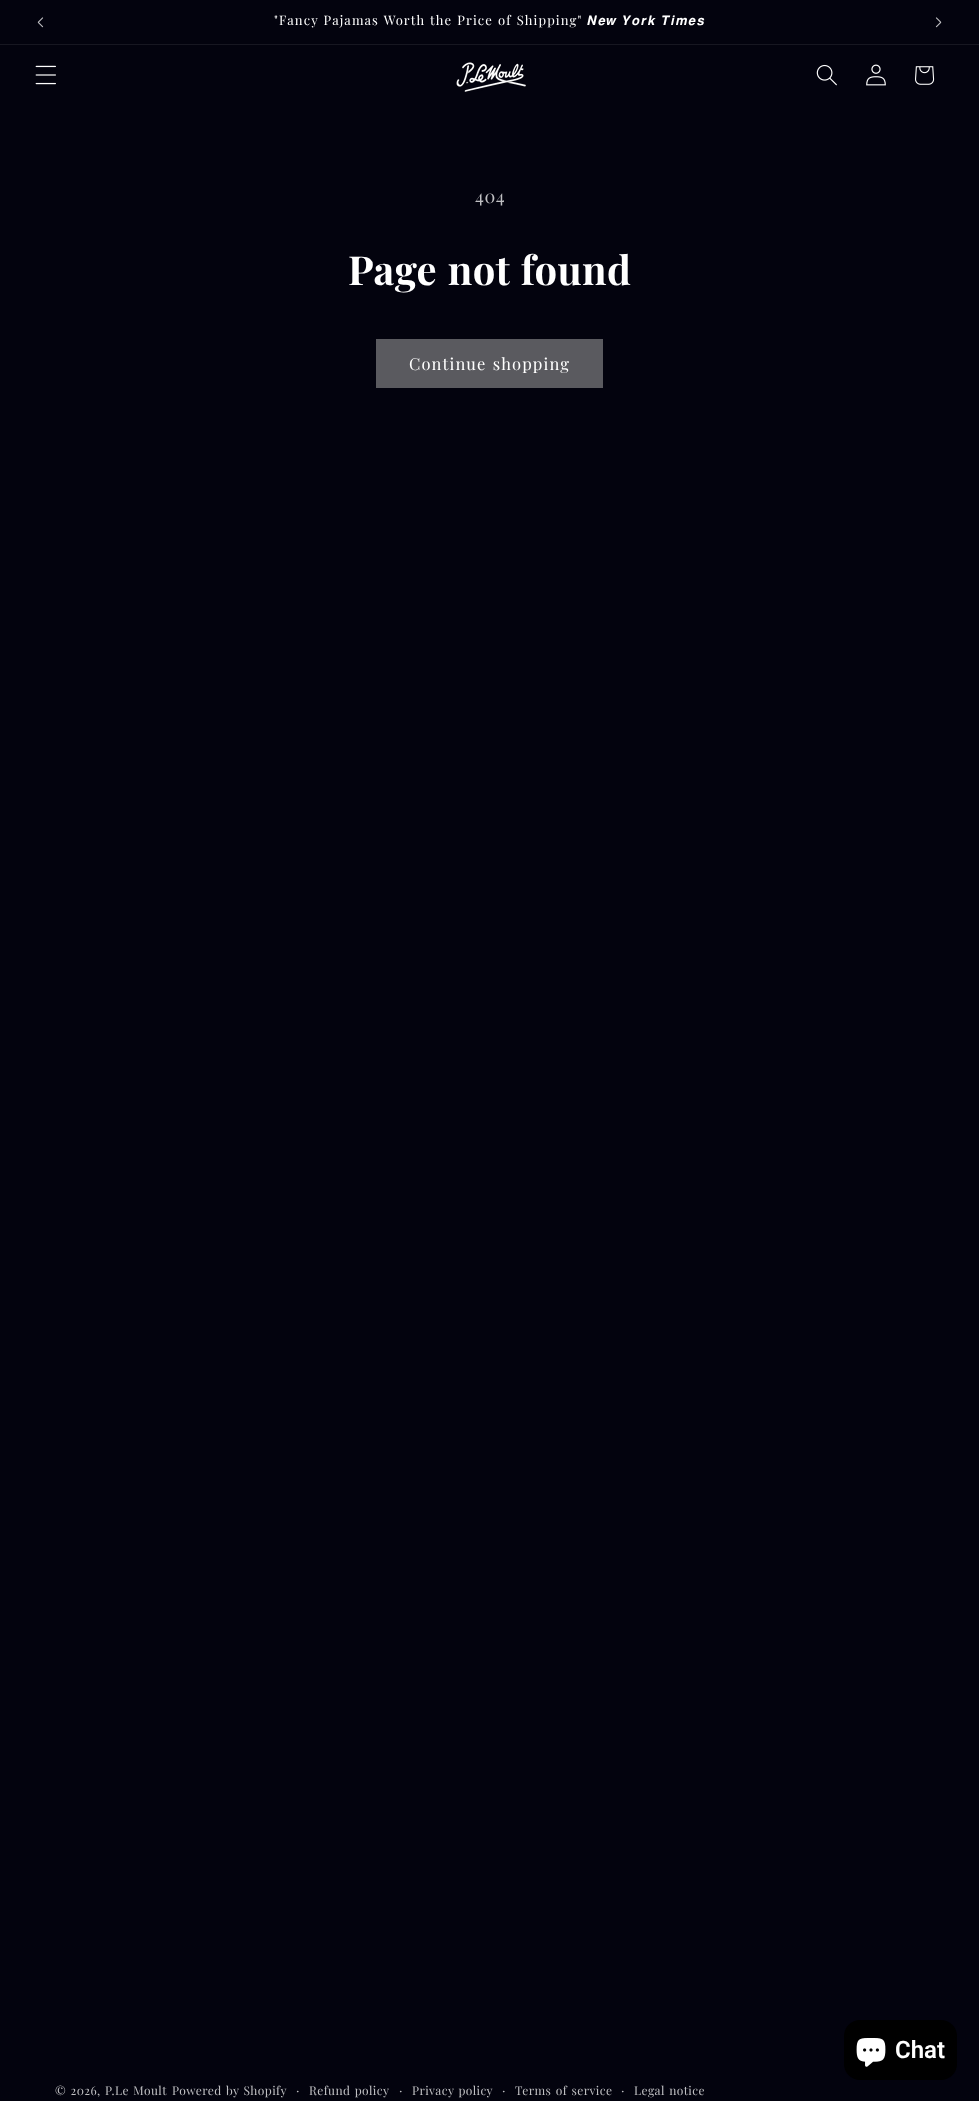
<svg xmlns="http://www.w3.org/2000/svg" xmlns:xlink="http://www.w3.org/1999/xlink" width="979" height="2101" viewBox="0 0 979 2101">
<style>
.cls-1{font:13px Playfair Display;letter-spacing:1.1px;fill:#ffffff}
.cls-2{font:13px FreeSans;letter-spacing:1.1px;fill:#ffffff}
.cls-3{font:18px Playfair Display;letter-spacing:0.5px;fill:#c0c0c3}
.cls-4{font:bold 40px Playfair Display;letter-spacing:0.4px;fill:#ffffff}
.cls-5{font:16.5px Playfair Display;letter-spacing:1.1px;fill:#ffffff}
.cls-6{font:600 24px Roboto;fill:#ffffff}
.cls-7{font:12px Playfair Display;letter-spacing:0.4px;fill:#c0c0c3}
.cls-8{font:13px Playfair Display;letter-spacing:1px;fill:#c0c0c3}
</style>
<rect width="100%" height="100%" fill="#03030e"/>
<rect fill="#171721" x="0" y="44" width="979" height="1"/>
<image xlink:href="image0.png" x="37" y="17" width="7" height="11"/>
<image xlink:href="image1.png" x="935" y="17" width="7" height="11"/>
<image xlink:href="image2.png" x="35" y="65" width="21" height="20"/>
<image xlink:href="image3.png" x="456" y="62" width="70" height="30"/>
<image xlink:href="image4.png" x="816" y="64" width="21" height="22"/>
<image xlink:href="image5.png" x="866" y="64" width="20" height="22"/>
<image xlink:href="image6.png" x="915" y="66" width="20" height="19"/>
<rect fill="#5a5a5f" x="376" y="339" width="227" height="49"/>
<rect fill="#000000" x="844" y="2020" width="113" height="60" rx="16"/>
<image xlink:href="image7.png" x="856" y="2038" width="30" height="29"/>
<text class="cls-1" x="274" y="25" word-spacing="0.75">"Fancy Pajamas Worth the Price of Shipping"</text>
<text class="cls-2" x="587" y="25">𝑵𝒆𝒘</text>
<text class="cls-2" x="623" y="25">𝒀𝒐𝒓𝒌</text>
<text class="cls-2" x="662" y="25">𝑻𝒊𝒎𝒆𝒔</text>
<text class="cls-3" x="475" y="203">404</text>
<text class="cls-4" x="348" y="285" word-spacing="1">Page not found</text>
<text class="cls-5" x="409" y="370" word-spacing="1">Continue shopping</text>
<text class="cls-6" x="895" y="2058">Chat</text>
<text class="cls-7" x="55" y="2095" word-spacing="1">© 2026,</text>
<text class="cls-7" x="105" y="2095" word-spacing="1">P.Le Moult</text>
<text class="cls-7" x="172" y="2095" word-spacing="1">Powered by Shopify</text>
<text class="cls-8" x="296" y="2095">·</text>
<text class="cls-7" x="309" y="2095" word-spacing="1">Refund policy</text>
<text class="cls-8" x="399" y="2095">·</text>
<text class="cls-7" x="412" y="2095" word-spacing="1">Privacy policy</text>
<text class="cls-8" x="502" y="2095">·</text>
<text class="cls-7" x="515" y="2095" word-spacing="1">Terms of service</text>
<text class="cls-8" x="621" y="2095">·</text>
<text class="cls-7" x="634" y="2095" word-spacing="1">Legal notice</text>
</svg>
